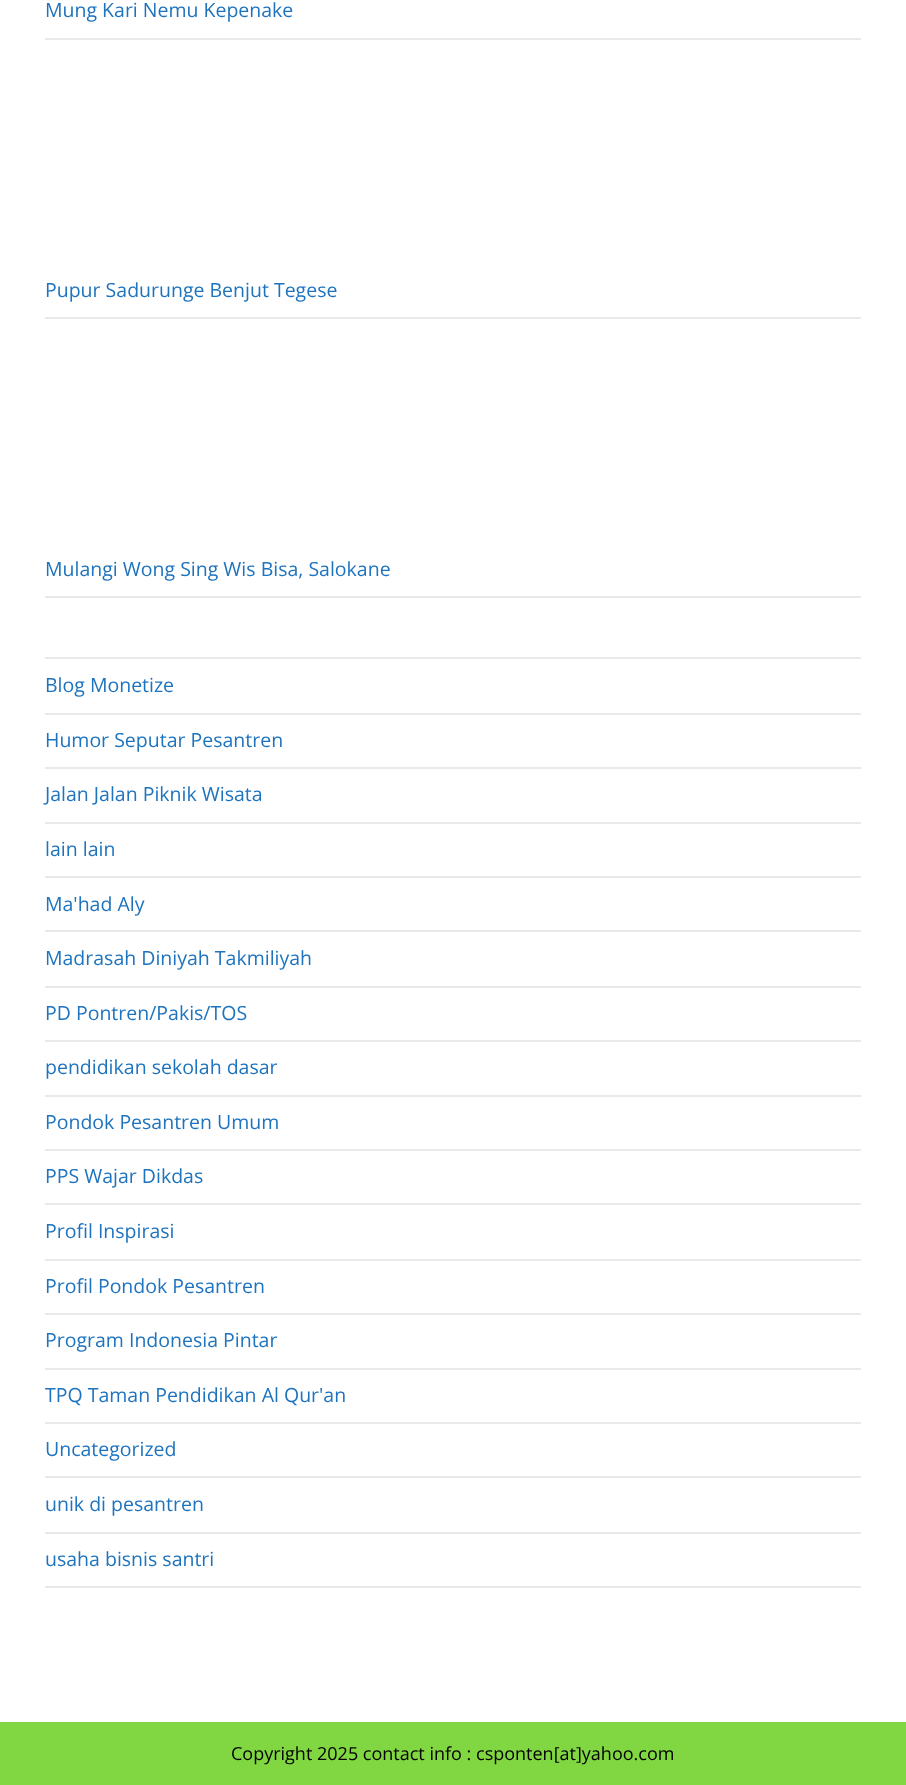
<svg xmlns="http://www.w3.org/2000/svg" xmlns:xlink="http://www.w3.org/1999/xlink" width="906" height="1785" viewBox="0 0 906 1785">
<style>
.cls-1{font:19.5px Open Sans;fill:#1e73be}
.cls-2{font:18px Open Sans;fill:#000000}
</style>
<rect width="100%" height="100%" fill="#ffffff"/>
<rect fill="#e9e9e9" x="45" y="38" width="816" height="2"/>
<rect fill="#e9e9e9" x="45" y="317" width="816" height="2"/>
<rect fill="#e9e9e9" x="45" y="596" width="816" height="2"/>
<rect fill="#e9e9e9" x="45" y="657" width="816" height="2"/>
<rect fill="#e9e9e9" x="45" y="713" width="816" height="2"/>
<rect fill="#e9e9e9" x="45" y="767" width="816" height="2"/>
<rect fill="#e9e9e9" x="45" y="822" width="816" height="2"/>
<rect fill="#e9e9e9" x="45" y="876" width="816" height="2"/>
<rect fill="#e9e9e9" x="45" y="930" width="816" height="2"/>
<rect fill="#e9e9e9" x="45" y="986" width="816" height="2"/>
<rect fill="#e9e9e9" x="45" y="1040" width="816" height="2"/>
<rect fill="#e9e9e9" x="45" y="1095" width="816" height="2"/>
<rect fill="#e9e9e9" x="45" y="1149" width="816" height="2"/>
<rect fill="#e9e9e9" x="45" y="1203" width="816" height="2"/>
<rect fill="#e9e9e9" x="45" y="1259" width="816" height="2"/>
<rect fill="#e9e9e9" x="45" y="1313" width="816" height="2"/>
<rect fill="#e9e9e9" x="45" y="1368" width="816" height="2"/>
<rect fill="#e9e9e9" x="45" y="1422" width="816" height="2"/>
<rect fill="#e9e9e9" x="45" y="1476" width="816" height="2"/>
<rect fill="#e9e9e9" x="45" y="1532" width="816" height="2"/>
<rect fill="#e9e9e9" x="45" y="1586" width="816" height="2"/>
<rect fill="#81d742" x="0" y="1722" width="906" height="63"/>
<text class="cls-1" x="45" y="17">Mung Kari Nemu Kepenake</text>
<text class="cls-1" x="45" y="297">Pupur Sadurunge Benjut Tegese</text>
<text class="cls-1" x="45" y="576">Mulangi Wong Sing Wis Bisa, Salokane</text>
<text class="cls-1" x="45" y="692">Blog Monetize</text>
<text class="cls-1" x="45" y="747">Humor Seputar Pesantren</text>
<text class="cls-1" x="45" y="801">Jalan Jalan Piknik Wisata</text>
<text class="cls-1" x="45" y="856">lain lain</text>
<text class="cls-1" x="45" y="911">Ma'had Aly</text>
<text class="cls-1" x="45" y="965">Madrasah Diniyah Takmiliyah</text>
<text class="cls-1" x="45" y="1020">PD Pontren/Pakis/TOS</text>
<text class="cls-1" x="45" y="1074">pendidikan sekolah dasar</text>
<text class="cls-1" x="45" y="1129">Pondok Pesantren Umum</text>
<text class="cls-1" x="45" y="1183">PPS Wajar Dikdas</text>
<text class="cls-1" x="45" y="1238">Profil Inspirasi</text>
<text class="cls-1" x="45" y="1293">Profil Pondok Pesantren</text>
<text class="cls-1" x="45" y="1347">Program Indonesia Pintar</text>
<text class="cls-1" x="45" y="1402">TPQ Taman Pendidikan Al Qur'an</text>
<text class="cls-1" x="45" y="1456">Uncategorized</text>
<text class="cls-1" x="45" y="1511">unik di pesantren</text>
<text class="cls-1" x="45" y="1566">usaha bisnis santri</text>
<text class="cls-2" x="231" y="1760">Copyright 2025 contact info : csponten[at]yahoo.com</text>
</svg>
